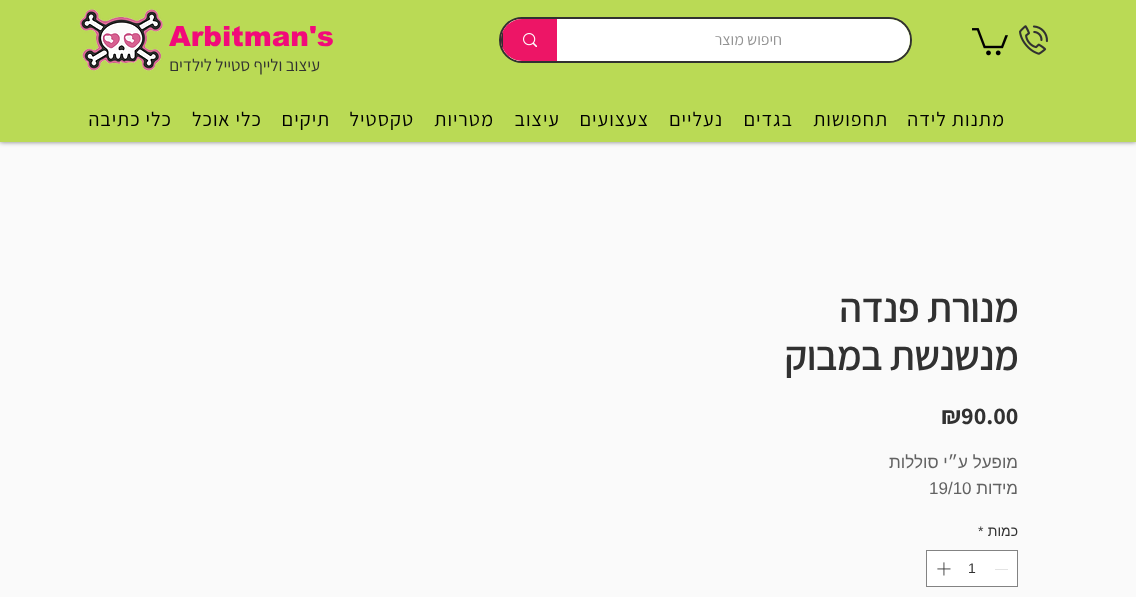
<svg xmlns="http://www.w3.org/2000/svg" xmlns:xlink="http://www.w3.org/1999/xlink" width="1136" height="597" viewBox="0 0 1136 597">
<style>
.cls-1{font:16px Assistant;direction:rtl;fill:#939393}
.cls-2{font:900 28px arial;fill:#f20a7a}
.cls-3{font:17px Assistant;direction:rtl;fill:#313131}
.cls-4{font:20px Assistant;letter-spacing:1px;direction:rtl;fill:#000000}
.cls-5{font:bold 40px Assistant;direction:rtl;fill:#313131}
.cls-6{font:bold 24px 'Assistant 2';fill:#313131}
.cls-7{font:17px Liberation Sans;direction:rtl;fill:#626262}
.cls-8{font:17px Liberation Sans;fill:#626262}
.cls-9{font:14px Liberation Sans;direction:rtl;fill:#313131}
.cls-10{font:14px Liberation Sans;fill:#313131}
</style>
<defs>
<clipPath id="clip1"><rect x="501" y="19" width="409" height="42" rx="21"/></clipPath>
</defs>
<rect width="100%" height="100%" fill="#fafafa"/>
<rect fill="#000000" fill-opacity="0.5" filter="blur(2.5px)" x="0" y="0" width="1136" height="142"/>
<rect fill="#bada55" x="0" y="0" width="1136" height="142"/>
<image xlink:href="image0.png" x="1019" y="25" width="29" height="30"/>
<image xlink:href="image1.png" x="972" y="28" width="36" height="28"/>
<rect fill="none" stroke="#313131" stroke-width="2" x="500" y="18" width="411" height="44" rx="22"/>
<rect fill="#ffffff" x="501" y="19" width="409" height="42" rx="21"/>
<path fill="#ed1566" d="M522 19H557V61H522C510.5 61 501 51.5 501 40C501 28.5 510.5 19 522 19Z"/>
<g clip-path="url(#clip1)">
<rect fill="#313131" x="501" y="31" width="2" height="18"/>
</g>
<image xlink:href="image2.png" x="523" y="33" width="14" height="14"/>
<image xlink:href="image3.png" x="79" y="9" width="84" height="62"/>
<rect fill="#ffffff" stroke="#838383" x="926.5" y="550.5" width="91" height="36"/>
<rect fill="#e3e3e3" x="995" y="569" width="13" height="1"/>
<image xlink:href="image4.png" x="937" y="562" width="14" height="14"/>
<text class="cls-1" x="782" y="45">חיפוש מוצר</text>
<text class="cls-2" x="169" y="46">Arbitman's</text>
<text class="cls-3" x="320" y="71">עיצוב ולייף סטייל לילדים</text>
<text class="cls-4" x="1005" y="126">מתנות לידה</text>
<text class="cls-4" x="888" y="126">תחפושות</text>
<text class="cls-4" x="793" y="126">בגדים</text>
<text class="cls-4" x="723" y="126">נעליים</text>
<text class="cls-4" x="649" y="126">צעצועים</text>
<text class="cls-4" x="560" y="126">עיצוב</text>
<text class="cls-4" x="494" y="126">מטריות</text>
<text class="cls-4" x="414" y="126">טקסטיל</text>
<text class="cls-4" x="330" y="126">תיקים</text>
<text class="cls-4" x="262" y="126">כלי אוכל</text>
<text class="cls-4" x="172" y="126">כלי כתיבה</text>
<text class="cls-5"><tspan x="1018" y="322">מנורת פנדה</tspan><tspan x="1018" y="370">מנשנשת במבוק</tspan></text>
<text class="cls-6" x="941" y="424">₪90.00</text>
<text class="cls-7"><tspan x="1018" y="468">מופעל ע״י סוללות</tspan><tspan x="1018" y="494">מידות</tspan></text>
<text class="cls-8" x="929" y="494">19/10</text>
<text class="cls-9" x="1018" y="536">כמות</text>
<text class="cls-10" x="978" y="536">*</text>
<text class="cls-10" x="968" y="573">1</text>
</svg>
